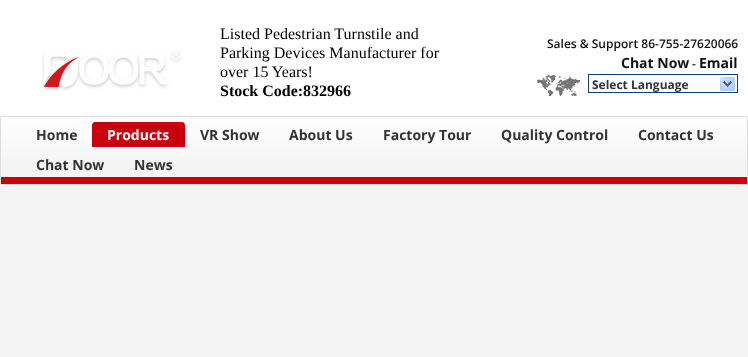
<svg xmlns="http://www.w3.org/2000/svg" xmlns:xlink="http://www.w3.org/1999/xlink" width="748" height="357" viewBox="0 0 748 357">
<style>
.cls-1{font:16px Liberation Serif;fill:#000000}
.cls-2{font:bold 16px Liberation Serif;fill:#000000}
.cls-3{font:600 12px Open Sans;fill:#111111}
.cls-4{font:bold 14px Open Sans;fill:#111111}
.cls-5{font:bold 12px Open Sans;fill:#333333}
.cls-6{font:bold 14px Open Sans;fill:#333333}
.cls-7{font:bold 14px Open Sans;fill:#ffffff}
</style>
<defs>
<linearGradient id="g1" gradientUnits="userSpaceOnUse" x1="374" y1="117" x2="374" y2="177"><stop offset="0" stop-color="#ffffff"/><stop offset="1" stop-color="#f3f2f2"/></linearGradient>
</defs>
<rect width="100%" height="100%" fill="#f4f4f4"/>
<rect fill="#ffffff" x="0" y="0" width="748" height="116"/>
<image xlink:href="image0.png" x="42" y="50" width="140" height="41"/>
<image xlink:href="image1.png" x="537" y="75" width="43" height="21"/>
<rect fill="none" stroke="#0e4074" x="588.5" y="74.5" width="149" height="18"/>
<image xlink:href="image2.png" x="720" y="77" width="15" height="14"/>
<rect fill="none" stroke="#dddddc" x="0.5" y="116.5" width="747" height="68" rx="0.5"/>
<rect fill="url(#g1)" x="1" y="117" width="746" height="43"/>
<rect fill="#cb000f" x="1" y="177" width="746" height="7"/>
<path fill="#cb000f" d="M95 122H182C183.5 122 185 123.5 185 125V147H92V125C92 123.5 93.5 122 95 122Z"/>
<text class="cls-1"><tspan x="220" y="39">Listed Pedestrian Turnstile and</tspan><tspan x="220" y="58">Parking Devices Manufacturer for</tspan><tspan x="220" y="77">over 15 Years!</tspan></text>
<text class="cls-2" x="220" y="96">Stock Code:832966</text>
<text class="cls-3" x="547" y="48">Sales &amp; Support 86-755-27620066</text>
<text class="cls-4" x="621" y="68">Chat Now</text>
<text class="cls-3" x="692" y="68">-</text>
<text class="cls-4" x="699" y="68">Email</text>
<text class="cls-5" x="592" y="89">Select Language</text>
<text class="cls-6" x="36" y="140">Home</text>
<text class="cls-7" x="107" y="140">Products</text>
<text class="cls-6" x="200" y="140">VR Show</text>
<text class="cls-6" x="289" y="140">About Us</text>
<text class="cls-6" x="383" y="140">Factory Tour</text>
<text class="cls-6" x="501" y="140">Quality Control</text>
<text class="cls-6" x="638" y="140">Contact Us</text>
<text class="cls-6" x="36" y="170">Chat Now</text>
<text class="cls-6" x="134" y="170">News</text>
</svg>
